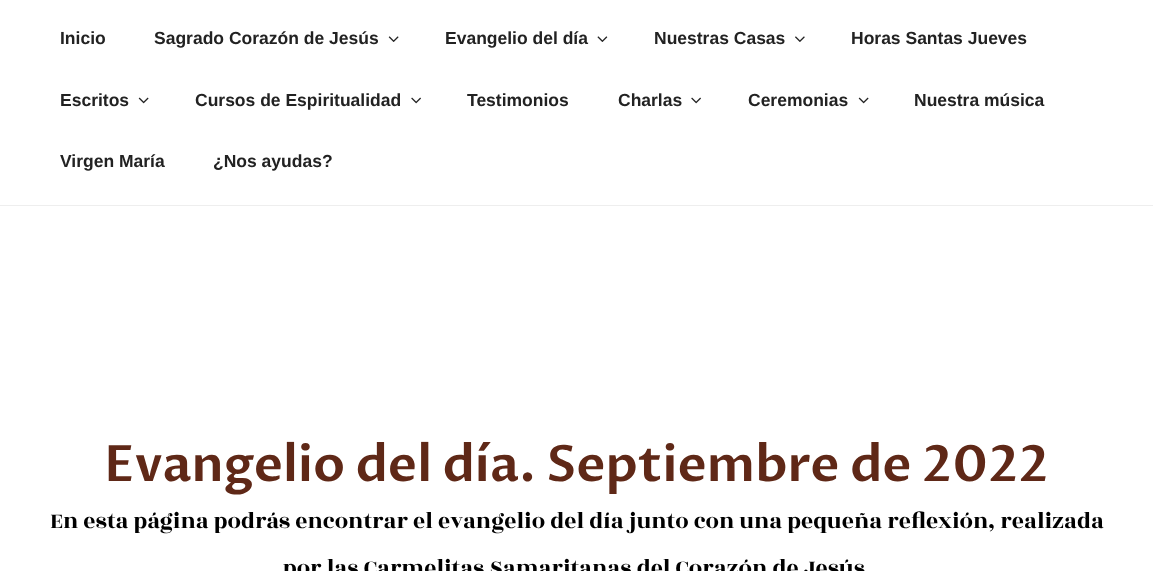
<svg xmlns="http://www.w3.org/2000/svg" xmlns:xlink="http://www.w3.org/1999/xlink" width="1153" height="571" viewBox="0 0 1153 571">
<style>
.cls-1{font:bold 17.5px Liberation Sans;fill:#222222}
.cls-2{font:600 50px Proza Libre;fill:#5f2817}
.cls-3{font:23.75px Rozha One;fill:#000000}
</style>
<rect width="100%" height="100%" fill="#ffffff"/>
<rect fill="#eeeeee" x="0" y="205" width="1153" height="1"/>
<image xlink:href="image0.png" x="388" y="36" width="11" height="6"/>
<image xlink:href="image1.png" x="597" y="36" width="11" height="6"/>
<image xlink:href="image2.png" x="795" y="36" width="10" height="6"/>
<image xlink:href="image3.png" x="138" y="97" width="11" height="7"/>
<image xlink:href="image4.png" x="411" y="97" width="10" height="7"/>
<image xlink:href="image4.png" x="691" y="97" width="10" height="7"/>
<image xlink:href="image3.png" x="858" y="97" width="11" height="7"/>
<text class="cls-1" x="60" y="44">Inicio</text>
<text class="cls-1" x="154" y="44">Sagrado Corazón de Jesús</text>
<text class="cls-1" x="445" y="44">Evangelio del día</text>
<text class="cls-1" x="654" y="44">Nuestras Casas</text>
<text class="cls-1" x="851" y="44">Horas Santas Jueves</text>
<text class="cls-1" x="60" y="106">Escritos</text>
<text class="cls-1" x="195" y="106">Cursos de Espiritualidad</text>
<text class="cls-1" x="467" y="106">Testimonios</text>
<text class="cls-1" x="618" y="106">Charlas</text>
<text class="cls-1" x="748" y="106">Ceremonias</text>
<text class="cls-1" x="914" y="106">Nuestra música</text>
<text class="cls-1" x="60" y="167">Virgen María</text>
<text class="cls-1" x="213" y="167">¿Nos ayudas?</text>
<text class="cls-2" x="104" y="481">Evangelio del día. Septiembre de 2022</text>
<text class="cls-3" x="50" y="528">En esta página podrás encontrar el evangelio del día junto con una pequeña reflexión, realizada</text>
<text class="cls-3" x="283" y="575">por las Carmelitas Samaritanas del Corazón de Jesús</text>
</svg>
